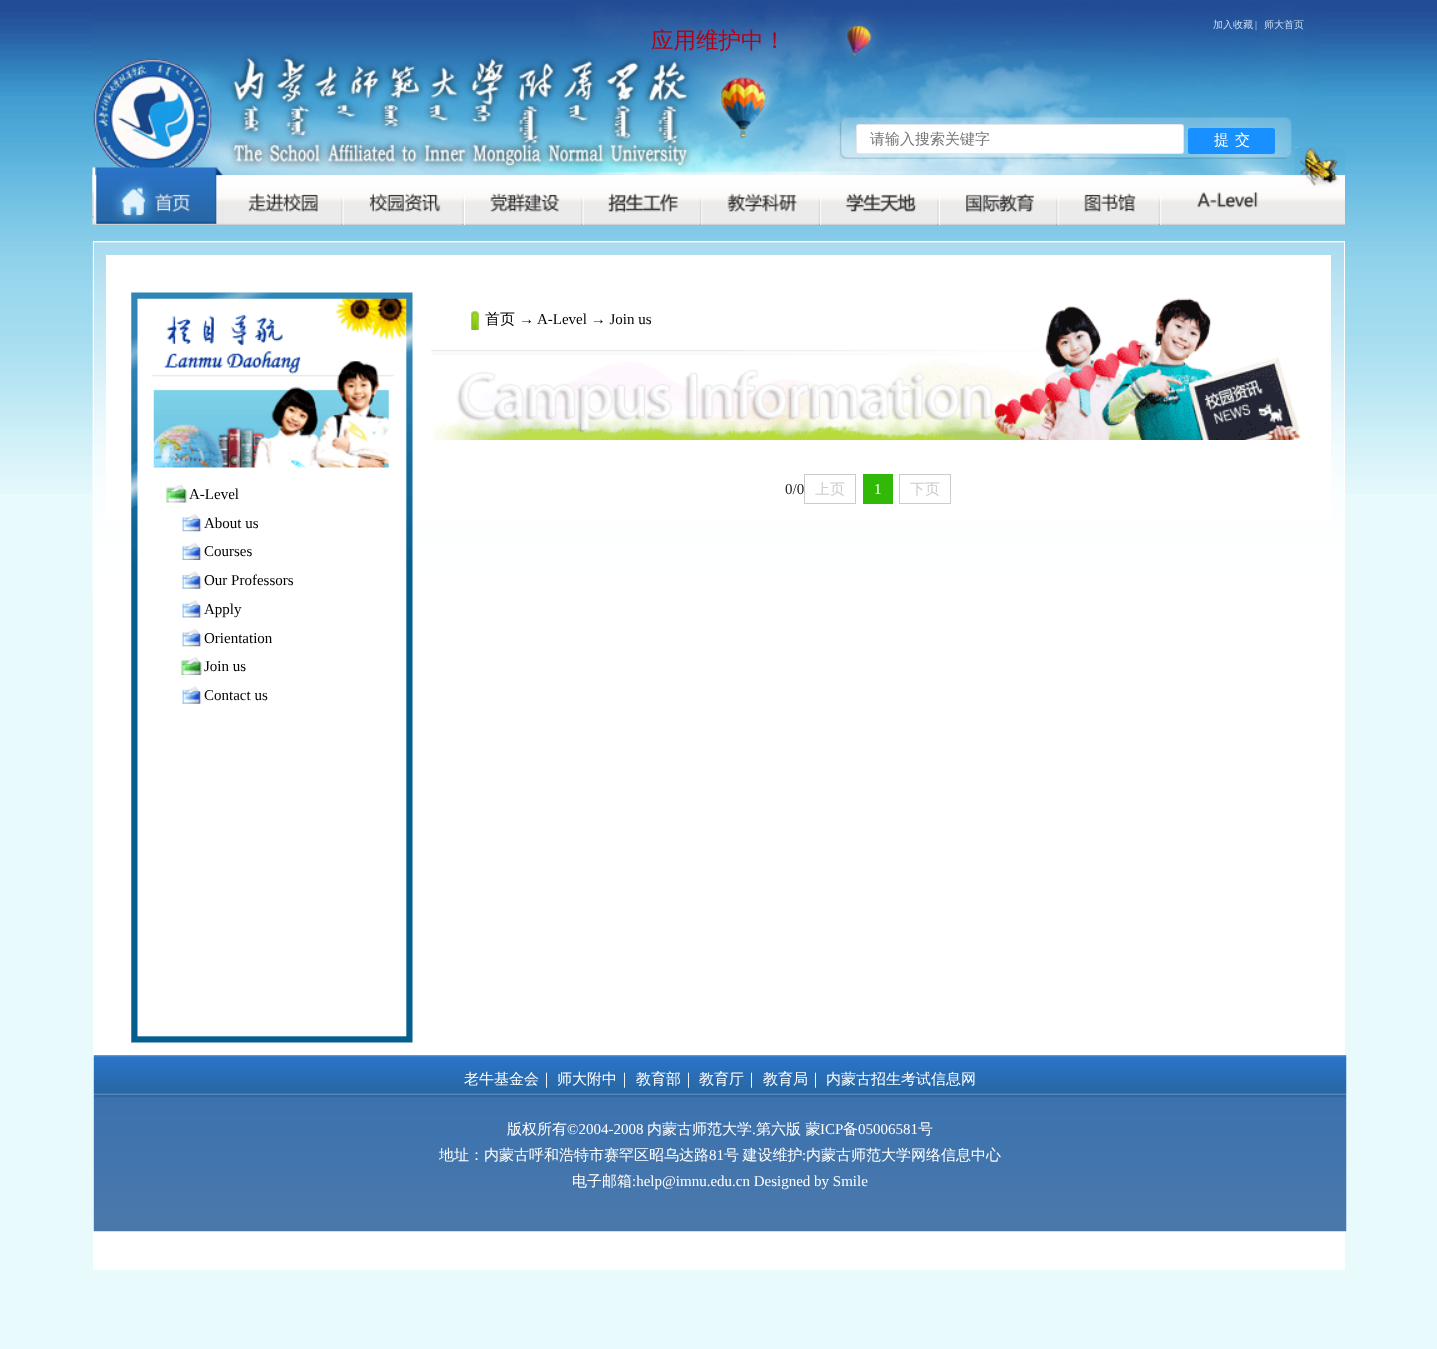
<svg xmlns="http://www.w3.org/2000/svg" xmlns:xlink="http://www.w3.org/1999/xlink" width="1437" height="1349" viewBox="0 0 1437 1349">
<style>
.cls-1{font:500 10px WenQuanYi Zen Hei;fill:#cbddf4}
.cls-2{font:10px Liberation Serif;fill:#cbddf4}
.cls-3{font:500 22.5px WenQuanYi Zen Hei;fill:#b30216}
.cls-4{font:500 15px WenQuanYi Zen Hei;fill:#757575}
.cls-5{font:500 15px WenQuanYi Zen Hei;letter-spacing:6px;fill:#ffffff}
.cls-6{font:500 15px WenQuanYi Zen Hei;fill:#000000}
.cls-7{font:15px Liberation Serif;fill:#000000}
.cls-8{font:15px Liberation Serif;fill:#222222}
.cls-9{font:500 15px WenQuanYi Zen Hei;fill:#cccccc}
.cls-10{font:15px Liberation Serif;fill:#ffffff}
.cls-11{font:500 15px WenQuanYi Zen Hei;fill:#ffffff}
</style>
<rect width="100%" height="100%" fill="#e8fafc"/>
<image xlink:href="image0.png" x="0" y="0" width="1437" height="494"/>
<image xlink:href="image1.png" x="92" y="3" width="1230" height="222"/>
<rect fill="#ffffff" stroke="#e4e7ed" x="856.5" y="124.5" width="327" height="29" rx="2"/>
<rect fill="#1890ff" x="1188" y="128" width="87" height="26" rx="2.5"/>
<image xlink:href="image2.png" x="92" y="175" width="1253" height="50"/>
<image xlink:href="image3.png" x="92" y="167" width="3" height="51"/>
<image xlink:href="image4.png" x="95" y="167" width="128" height="58"/>
<image xlink:href="image5.png" x="222" y="175" width="3" height="50"/>
<image xlink:href="image6.png" x="222" y="193" width="96" height="32"/>
<image xlink:href="image7.png" x="341" y="195" width="3" height="30"/>
<image xlink:href="image8.png" x="343" y="193" width="98" height="32"/>
<image xlink:href="image9.png" x="462" y="194" width="3" height="31"/>
<image xlink:href="image10.png" x="489" y="193" width="71" height="19"/>
<image xlink:href="image7.png" x="581" y="195" width="3" height="30"/>
<image xlink:href="image11.png" x="583" y="193" width="95" height="32"/>
<image xlink:href="image12.png" x="700" y="195" width="3" height="30"/>
<image xlink:href="image13.png" x="702" y="193" width="96" height="32"/>
<image xlink:href="image14.png" x="818" y="195" width="4" height="30"/>
<image xlink:href="image15.png" x="821" y="193" width="96" height="32"/>
<image xlink:href="image9.png" x="937" y="194" width="3" height="31"/>
<image xlink:href="image16.png" x="966" y="193" width="68" height="20"/>
<image xlink:href="image7.png" x="1056" y="195" width="3" height="30"/>
<image xlink:href="image17.png" x="1058" y="193" width="78" height="32"/>
<image xlink:href="image14.png" x="1158" y="195" width="4" height="30"/>
<image xlink:href="image18.png" x="1161" y="192" width="97" height="33"/>
<image xlink:href="image19.png" x="1295" y="147" width="3" height="1"/>
<image xlink:href="image20.png" x="1295" y="147" width="50" height="51"/>
<rect fill="#ffffff" x="94" y="242" width="1250" height="1027"/>
<image xlink:href="image21.png" x="92" y="242" width="1252" height="354"/>
<rect fill="none" stroke="#ffffff" x="93.5" y="241.5" width="1251" height="1028"/>
<rect fill="#ffffff" x="106" y="255" width="1225" height="267"/>
<image xlink:href="image22.png" x="431" y="298" width="874" height="142"/>
<image xlink:href="image23.png" x="471" y="311" width="8" height="19"/>
<rect fill="none" stroke="#cccccc" x="804.5" y="474.5" width="51" height="29"/>
<rect fill="#32b907" x="863" y="474" width="30" height="30"/>
<rect fill="none" stroke="#cccccc" x="899.5" y="474.5" width="51" height="29"/>
<image xlink:href="image24.png" x="131" y="292" width="282" height="751"/>
<image xlink:href="image25.png" x="166" y="485" width="21" height="18"/>
<image xlink:href="image26.png" x="182" y="513" width="20" height="19"/>
<image xlink:href="image27.png" x="182" y="542" width="20" height="18"/>
<image xlink:href="image28.png" x="182" y="571" width="20" height="18"/>
<image xlink:href="image29.png" x="182" y="600" width="20" height="18"/>
<image xlink:href="image26.png" x="182" y="628" width="20" height="19"/>
<image xlink:href="image30.png" x="181" y="657" width="21" height="18"/>
<image xlink:href="image28.png" x="182" y="686" width="20" height="18"/>
<image xlink:href="image31.png" x="93" y="1055" width="1254" height="177"/>
<text class="cls-1" x="1213" y="28">加入收藏</text>
<text class="cls-2" x="1255" y="28">|</text>
<text class="cls-1" x="1264" y="28">师大首页</text>
<text class="cls-3" x="651" y="48">应用维护中！</text>
<text class="cls-4" x="870" y="144">请输入搜索关键字</text>
<text class="cls-5" x="1214" y="145">提交</text>
<text class="cls-6" x="485" y="324">首页</text>
<text class="cls-7" x="519" y="324">→ A-Level → Join us</text>
<text class="cls-8" x="785" y="494">0/0</text>
<text class="cls-9" x="815" y="494">上页</text>
<text class="cls-10" x="874" y="494">1</text>
<text class="cls-9" x="910" y="494">下页</text>
<text class="cls-7" x="189" y="499">A-Level</text>
<text class="cls-7"><tspan x="204" y="528">About us</tspan><tspan x="204" y="556">Courses</tspan><tspan x="204" y="585">Our Professors</tspan><tspan x="204" y="614">Apply</tspan><tspan x="204" y="643">Orientation</tspan><tspan x="204" y="671">Join us</tspan><tspan x="204" y="700">Contact us</tspan></text>
<text class="cls-11" x="464" y="1084">老牛基金会｜</text>
<text class="cls-11" x="557" y="1084">师大附中｜</text>
<text class="cls-11" x="636" y="1084">教育部｜</text>
<text class="cls-11" x="699" y="1084">教育厅｜</text>
<text class="cls-11" x="763" y="1084">教育局｜</text>
<text class="cls-11" x="826" y="1084">内蒙古招生考试信息网</text>
<text class="cls-11" x="507" y="1134">版权所有</text>
<text class="cls-10" x="567" y="1134">©2004-2008</text>
<text class="cls-11" x="647" y="1134">内蒙古师范大学</text>
<text class="cls-10" x="752" y="1134">.</text>
<text class="cls-11" x="756" y="1134">第六版 蒙</text>
<text class="cls-10" x="820" y="1134">ICP</text>
<text class="cls-11" x="843" y="1134">备</text>
<text class="cls-10" x="858" y="1134">05006581</text>
<text class="cls-11" x="918" y="1134">号</text>
<text class="cls-11" x="439" y="1160">地址：内蒙古呼和浩特市赛罕区昭乌达路</text>
<text class="cls-10" x="709" y="1160">81</text>
<text class="cls-11" x="724" y="1160" word-spacing="-1">号 建设维护</text>
<text class="cls-10" x="802" y="1160">:</text>
<text class="cls-11" x="806" y="1160">内蒙古师范大学网络信息中心</text>
<text class="cls-11" x="572" y="1186">电子邮箱</text>
<text class="cls-10" x="632" y="1186">:help@imnu.edu.cn Designed by Smile</text>
</svg>
